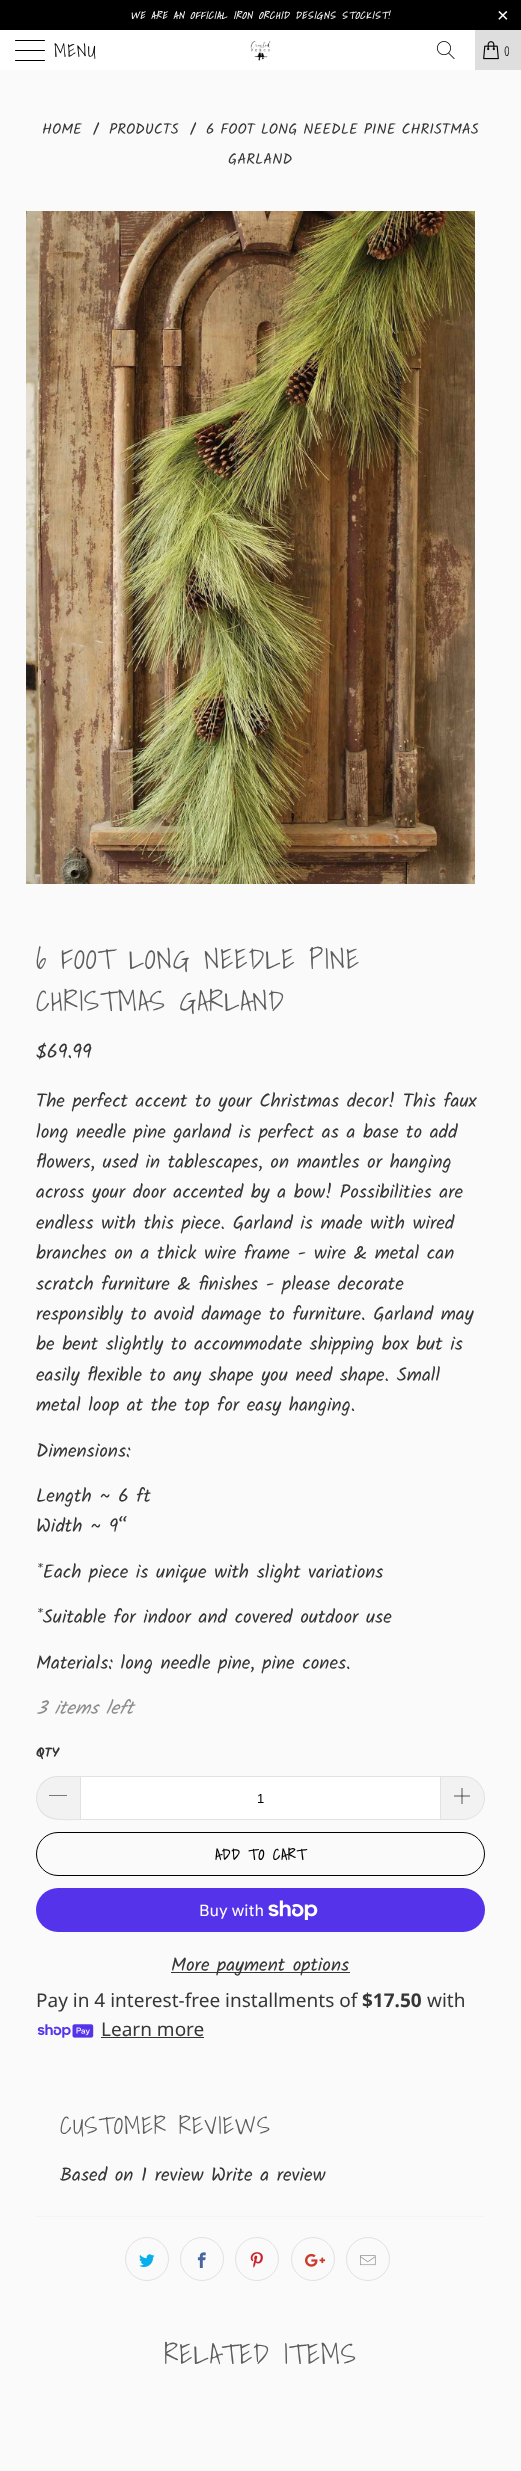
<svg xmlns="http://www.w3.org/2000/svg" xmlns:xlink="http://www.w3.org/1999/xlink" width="521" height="2471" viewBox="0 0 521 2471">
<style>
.cls-1{font:italic bold 10px Shadows Into Light;letter-spacing:1px;fill:#ffffff}
.cls-2{font:20px Liberation Sans;letter-spacing:1px;fill:#ffffff}
.cls-3{font:18px Shadows Into Light;letter-spacing:1px;fill:#000000}
.cls-4{font:15px Kalam;fill:#363636}
.cls-5{font:28px Shadows Into Light;letter-spacing:1px;fill:#5c5c5c}
.cls-6{font:20px Kalam;fill:#363636}
.cls-7{font:19px Kalam;fill:#363636}
.cls-8{font:italic 19px Kalam;fill:#8c8b8b}
.cls-9{font:bold 13px Kalam;fill:#363636}
.cls-10{font:13px Liberation Sans;fill:#000000}
.cls-11{font:bold 15px Shadows Into Light;letter-spacing:1px;fill:#000000}
.cls-12{font:16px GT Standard;fill:#ffffff}
.cls-13{font:19px Noto Sans;fill:#363636}
.cls-14{font:bold 19px Noto Sans;fill:#363636}
.cls-15{font:24px Shadows Into Light;letter-spacing:1px;fill:#5c5c5c}
</style>
<rect width="100%" height="100%" fill="#fafafa"/>
<rect fill="#000000" x="0" y="0" width="521" height="30"/>
<rect fill="#ffffff" x="0" y="30" width="475" height="40"/>
<rect fill="#000000" x="15" y="40" width="30" height="1" rx="0.5"/>
<rect fill="#000000" x="15" y="50" width="30" height="1" rx="0.5"/>
<rect fill="#000000" x="15" y="60" width="30" height="1" rx="0.5"/>
<image xlink:href="image0.png" x="250" y="40" width="21" height="21"/>
<image xlink:href="image1.png" x="437" y="41" width="18" height="18"/>
<rect fill="#dedede" x="475" y="30" width="46" height="40"/>
<image xlink:href="image2.png" x="483" y="41" width="16" height="19"/>
<image xlink:href="image3.png" x="26" y="211" width="449" height="673"/>
<path fill="#f2f2f2" d="M58 1776H80V1820H58C46 1820 36 1810 36 1798C36 1786 46 1776 58 1776Z"/>
<path fill="#e2e2e2" fill-rule="evenodd" d="M58 1776H80V1820C72 1820 57 1821 49 1818C28 1809 34 1776 58 1776ZM58 1777H80V1819C72 1819 57 1820 50 1817C29 1809 35 1777 58 1777Z"/>
<path fill="#000000" d="M49 1795H67V1795.5H49Z"/>
<rect fill="#ffffff" stroke="#e2e2e2" x="80.5" y="1776.5" width="360" height="43"/>
<path fill="#f2f2f2" d="M441 1776H463C475 1776 485 1786 485 1798C485 1810 475 1820 463 1820H441Z"/>
<path fill="#e2e2e2" fill-rule="evenodd" d="M441 1776H463C475 1776 485 1786 485 1798C485 1810 475 1820 463 1820H441ZM441 1777H463C475 1777 484 1786 484 1798C484 1810 475 1819 463 1819H441Z"/>
<image xlink:href="image4.png" x="454" y="1788" width="16" height="16"/>
<rect fill="none" stroke="#000000" x="36.5" y="1832.5" width="448" height="43" rx="21.5"/>
<rect fill="#5433eb" x="36" y="1888" width="449" height="44" rx="22"/>
<image xlink:href="image5.png" x="268" y="1900" width="50" height="20"/>
<rect fill="#363636" x="171" y="1972" width="179" height="1"/>
<image xlink:href="image6.png" x="37" y="2024" width="57" height="14"/>
<rect fill="#333333" x="101" y="2037" width="103" height="1"/>
<rect fill="#f5f5f5" x="36" y="2216" width="449" height="1"/>
<circle fill="none" stroke="#e2e2e2" cx="147" cy="2259" r="21.5"/>
<image xlink:href="image7.png" x="139" y="2254" width="16" height="13"/>
<circle fill="none" stroke="#e2e2e2" cx="202" cy="2259" r="21.5"/>
<image xlink:href="image8.png" x="197" y="2252" width="9" height="16"/>
<circle fill="none" stroke="#e2e2e2" cx="257" cy="2259" r="21.5"/>
<image xlink:href="image9.png" x="250" y="2252" width="13" height="16"/>
<circle fill="none" stroke="#e2e2e2" cx="313" cy="2259" r="21.5"/>
<image xlink:href="image10.png" x="305" y="2253" width="21" height="14"/>
<circle fill="none" stroke="#e2e2e2" cx="368" cy="2259" r="21.5"/>
<image xlink:href="image11.png" x="360" y="2255" width="16" height="11"/>
<text class="cls-1" x="130" y="19">WE ARE AN OFFICIAL IRON ORCHID DESIGNS STOCKIST!</text>
<text class="cls-2" x="497" y="22">×</text>
<text class="cls-3" x="54" y="57">MENU</text>
<text class="cls-3" x="504" y="56">0</text>
<text class="cls-4" x="42" y="134">HOME</text>
<text class="cls-4" x="93" y="134">/</text>
<text class="cls-4" x="109" y="134">PRODUCTS</text>
<text class="cls-4" x="190" y="134">/</text>
<text class="cls-4" x="206" y="134">6 FOOT LONG NEEDLE PINE CHRISTMAS</text>
<text class="cls-4" x="228" y="164">GARLAND</text>
<text class="cls-5"><tspan x="36" y="969">6 FOOT LONG NEEDLE PINE</tspan><tspan x="36" y="1011">CHRISTMAS GARLAND</tspan></text>
<text class="cls-6" x="36" y="1058">$69.99</text>
<text class="cls-7"><tspan x="36" y="1107">The perfect accent to your Christmas decor! This faux</tspan><tspan x="36" y="1138">long needle pine garland is perfect as a base to add</tspan><tspan x="36" y="1168">flowers, used in tablescapes, on mantles or hanging</tspan><tspan x="36" y="1198">across your door accented by a bow! Possibilities are</tspan><tspan x="36" y="1229">endless with this piece. Garland is made with wired</tspan><tspan x="36" y="1259">branches on a thick wire frame - wire &amp; metal can</tspan><tspan x="36" y="1290">scratch furniture &amp; finishes - please decorate</tspan><tspan x="36" y="1320">responsibly to avoid damage to furniture. Garland may</tspan><tspan x="36" y="1350">be bent slightly to accommodate shipping box but is</tspan><tspan x="36" y="1381">easily flexible to any shape you need shape. Small</tspan><tspan x="36" y="1411">metal loop at the top for easy hanging.</tspan></text>
<text class="cls-7" x="36" y="1457">Dimensions:</text>
<text class="cls-7"><tspan x="36" y="1502">Length ~ 6 ft</tspan><tspan x="36" y="1532">Width ~ 9“</tspan></text>
<text class="cls-7" x="36" y="1578">*Each piece is unique with slight variations</text>
<text class="cls-7" x="36" y="1623">*Suitable for indoor and covered outdoor use</text>
<text class="cls-7" x="36" y="1669">Materials: long needle pine, pine cones.</text>
<text class="cls-8" x="36" y="1714">3 items left</text>
<text class="cls-9" x="36" y="1757">QTY</text>
<text class="cls-10" x="257" y="1803">1</text>
<text class="cls-11" x="215" y="1860">ADD TO CART</text>
<text class="cls-12" x="199" y="1916">Buy with</text>
<text class="cls-7" x="171" y="1971">More payment options</text>
<text class="cls-13" x="36" y="2007">Pay in 4 interest-free installments of</text>
<text class="cls-14" x="362" y="2007">$17.50</text>
<text class="cls-13" x="427" y="2007">with</text>
<text class="cls-13" x="101" y="2036">Learn more</text>
<text class="cls-15" x="60" y="2134">CUSTOMER REVIEWS</text>
<text class="cls-7" x="60" y="2181">Based on 1 review</text>
<text class="cls-7" x="211" y="2181">Write a review</text>
<text class="cls-5" x="164" y="2364">RELATED ITEMS</text>
</svg>
